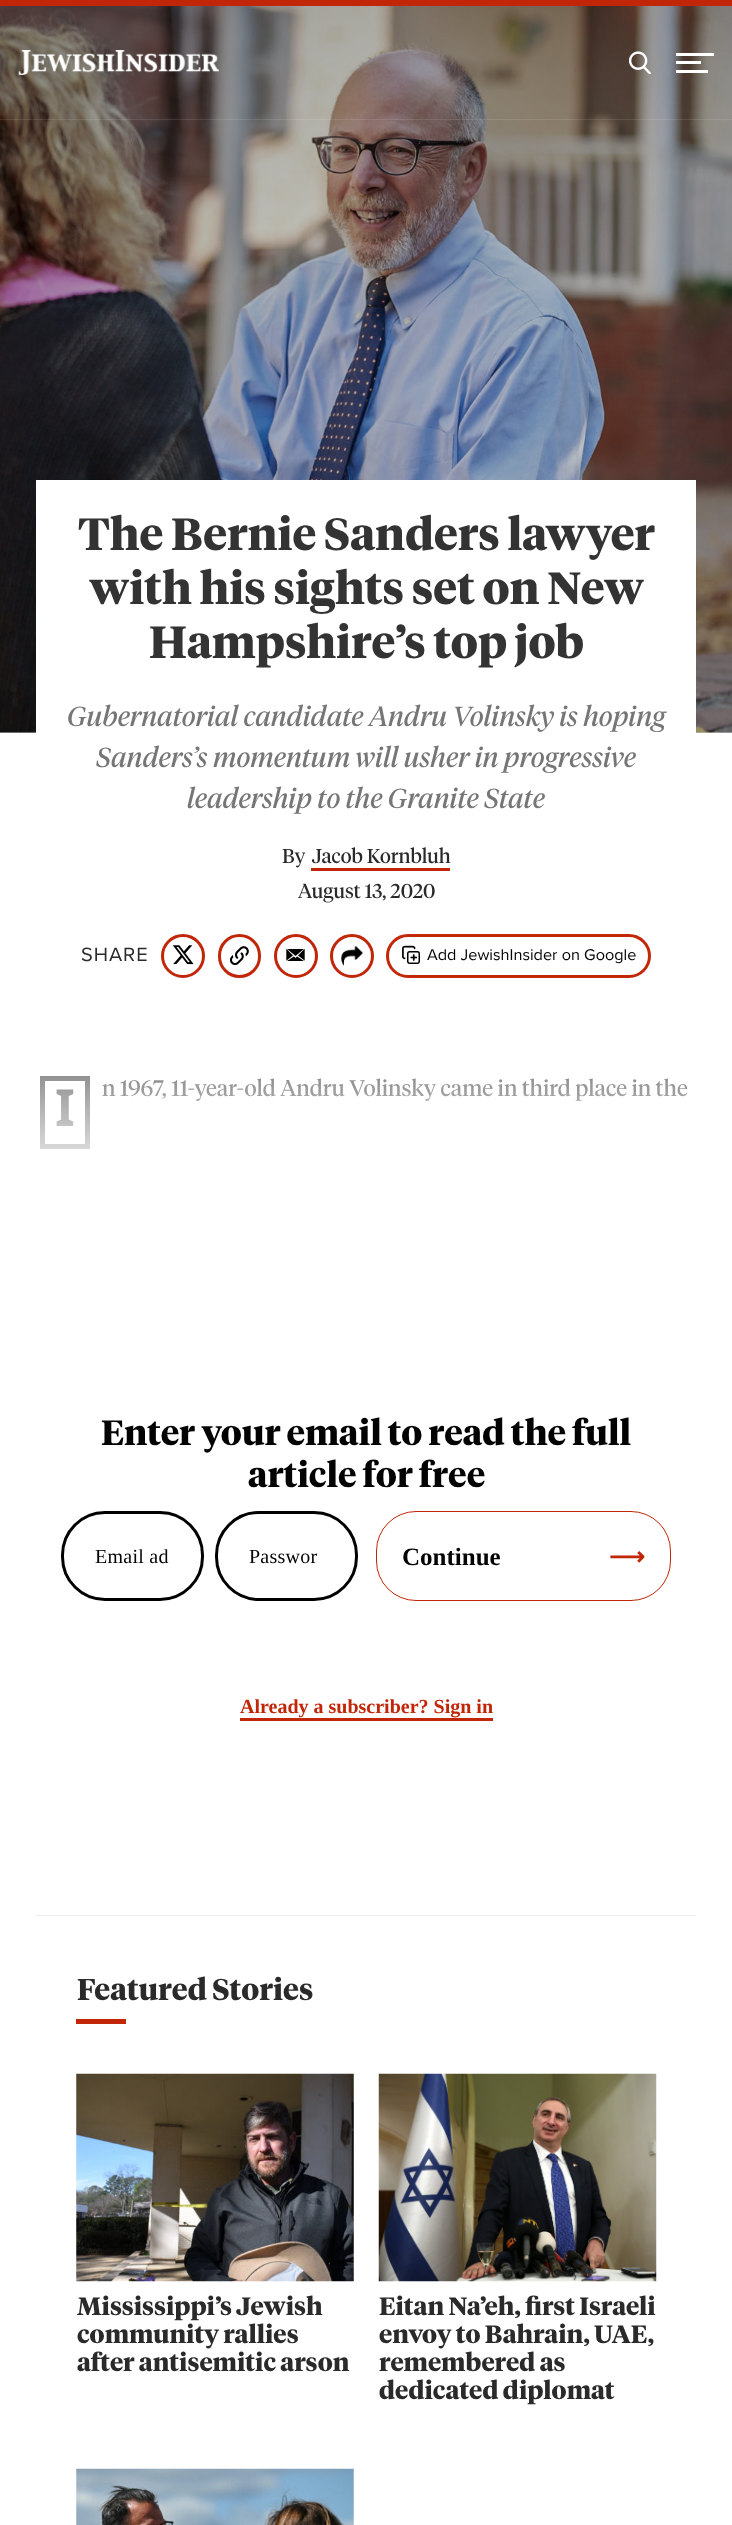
<svg xmlns="http://www.w3.org/2000/svg" xmlns:xlink="http://www.w3.org/1999/xlink" width="732" height="2525" viewBox="0 0 732 2525">
<style>
.cls-1{font:bold 45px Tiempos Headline;fill:#333333}
.cls-2{font:italic 27.5px Tiempos Headline;fill:#767676}
.cls-3{font:20px Tiempos Headline;fill:#2a2a2a}
.cls-4{font:20px Proxima Nova;letter-spacing:1px;fill:#2a2a2a}
.cls-5{font:16.25px Proxima Nova;fill:#030303}
.cls-6{font:bold 51px Noto Sans;fill:#333333}
.cls-7{font:22.5px Tiempos Headline;fill:#2a2a2a}
.cls-8{font:bold 35px Tiempos Headline;fill:#030303}
.cls-9{font:20px Liberation Serif;letter-spacing:0.25px;fill:#030303}
.cls-10{font:bold 25px Liberation Serif;fill:#030303}
.cls-11{font:bold 25px DejaVu Sans;fill:#c02607}
.cls-12{font:bold 20px Liberation Serif;fill:#c02607}
.cls-13{font:bold 30px Tiempos Headline;fill:#2a2a2a}
.cls-14{font:bold 25px Tiempos Headline;fill:#2a2a2a}
</style>
<defs>
<linearGradient id="g1" gradientUnits="userSpaceOnUse" x1="572" y1="807" x2="161" y2="-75"><stop offset="0.5" stop-color="#000000" stop-opacity="0.2"/><stop offset="1" stop-color="#000000" stop-opacity="0.4"/></linearGradient>
<linearGradient id="g2" gradientUnits="userSpaceOnUse" x1="366" y1="1071" x2="366" y2="1915"><stop offset="0" stop-color="#ffffff" stop-opacity="0.25"/><stop offset="0.15" stop-color="#ffffff"/><stop offset="1" stop-color="#ffffff"/></linearGradient>
<linearGradient id="g3" gradientUnits="userSpaceOnUse" x1="366" y1="1071" x2="366" y2="1915"><stop offset="0" stop-color="#ffffff" stop-opacity="0.25"/><stop offset="0.73" stop-color="#ffffff" stop-opacity="0.95"/></linearGradient>
</defs>
<rect width="100%" height="100%" fill="#ffffff"/>
<rect fill="#c02607" x="0" y="0" width="732" height="6"/>
<image xlink:href="image2.png" x="0" y="6" width="732" height="727"/>
<rect fill="url(#g1)" x="0" y="6" width="732" height="727"/>
<rect fill="#ffffff" fill-opacity="0.1" x="0" y="119" width="732" height="1"/>
<image xlink:href="image0.png" x="18" y="50" width="201" height="25"/>
<image xlink:href="image1.png" x="629" y="51" width="22" height="23"/>
<rect fill="#ffffff" x="676" y="61" width="25" height="3"/>
<rect fill="#ffffff" x="676" y="53" width="38" height="3"/>
<rect fill="#ffffff" x="676" y="70" width="32" height="3"/>
<rect fill="#ffffff" x="36" y="480" width="660" height="253"/>
<rect fill="#c02607" x="311" y="868" width="139" height="3"/>
<circle fill="none" stroke="#c02607" stroke-width="3" cx="183" cy="956" r="20.5"/>
<image xlink:href="image3.png" x="173" y="945" width="21" height="20"/>
<rect fill="none" stroke="#c02607" stroke-width="3" x="219.5" y="935.5" width="40" height="41" rx="20"/>
<image xlink:href="image4.png" x="229" y="946" width="20" height="20"/>
<circle fill="none" stroke="#c02607" stroke-width="3" cx="296" cy="956" r="20.5"/>
<image xlink:href="image5.png" x="286" y="949" width="19" height="12"/>
<circle fill="none" stroke="#c02607" stroke-width="3" cx="352" cy="956" r="20.5"/>
<image xlink:href="image6.png" x="341" y="945" width="22" height="21"/>
<rect fill="none" stroke="#c22805" stroke-width="3" x="387.5" y="935.5" width="262" height="41" rx="20.5"/>
<image xlink:href="image7.png" x="402" y="945" width="18" height="19"/>
<rect fill="none" stroke="#333333" stroke-width="5" x="42.5" y="1078.5" width="45" height="68"/>
<rect fill="none" stroke="#000000" stroke-width="3" x="62.5" y="1512.5" width="140" height="87" rx="42.5"/>
<rect fill="none" stroke="#000000" stroke-width="3" x="216.5" y="1512.5" width="140" height="87" rx="42.5"/>
<rect fill="none" stroke="#c02607" x="376.5" y="1511.5" width="294" height="89" rx="39.5"/>
<rect fill="#c02607" x="240" y="1718" width="253" height="3"/>
<rect fill="#eeeeee" x="36" y="1915" width="660" height="1"/>
<rect fill="#c02607" x="76" y="2019" width="50" height="5"/>
<image xlink:href="image8.png" x="76" y="2073" width="278" height="209"/>
<image xlink:href="image9.png" x="378" y="2073" width="279" height="209"/>
<image xlink:href="image10.png" x="76" y="2468" width="278" height="57"/>
<text class="cls-1" x="78" y="550">The Bernie Sanders lawyer</text>
<text class="cls-1" x="89" y="604">with his sights set on New</text>
<text class="cls-1" x="149" y="658">Hampshire’s top job</text>
<text class="cls-2" x="67" y="726">Gubernatorial candidate Andru Volinsky is hoping</text>
<text class="cls-2" x="96" y="767">Sanders’s momentum will usher in progressive</text>
<text class="cls-2" x="187" y="808">leadership to the Granite State</text>
<text class="cls-3" x="282" y="863">By</text>
<text class="cls-3" x="312" y="863">Jacob Kornbluh</text>
<text class="cls-3" x="298" y="898">August 13, 2020</text>
<text class="cls-4" x="81" y="961">SHARE</text>
<text class="cls-5" x="427" y="960">Add JewishInsider on Google</text>
<text class="cls-6" x="55" y="1126">I</text>
<text class="cls-7" x="102" y="1096">n 1967, 11-year-old Andru Volinsky came in third place in the</text>
<rect fill="url(#g2)" x="40" y="1076" width="648" height="73"/>
<rect fill="url(#g3)" x="40" y="1076" width="648" height="73"/>
<text class="cls-8" x="101" y="1445">Enter your email to read the full</text>
<text class="cls-8" x="248" y="1487">article for free</text>
<text class="cls-9" x="95" y="1563">Email ad</text>
<text class="cls-9" x="249" y="1563">Passwor</text>
<text class="cls-10" x="402" y="1565">Continue</text>
<text class="cls-11" x="609" y="1565">⟶</text>
<text class="cls-12" x="240" y="1713">Already a subscriber? Sign in</text>
<text class="cls-13" x="77" y="2000">Featured Stories</text>
<text class="cls-14"><tspan x="77" y="2315">Mississippi’s Jewish</tspan><tspan x="77" y="2343">community rallies</tspan><tspan x="77" y="2371">after antisemitic arson</tspan></text>
<text class="cls-14"><tspan x="379" y="2315">Eitan Na’eh, first Israeli</tspan><tspan x="379" y="2343">envoy to Bahrain, UAE,</tspan><tspan x="379" y="2371">remembered as</tspan><tspan x="379" y="2399">dedicated diplomat</tspan></text>
</svg>
